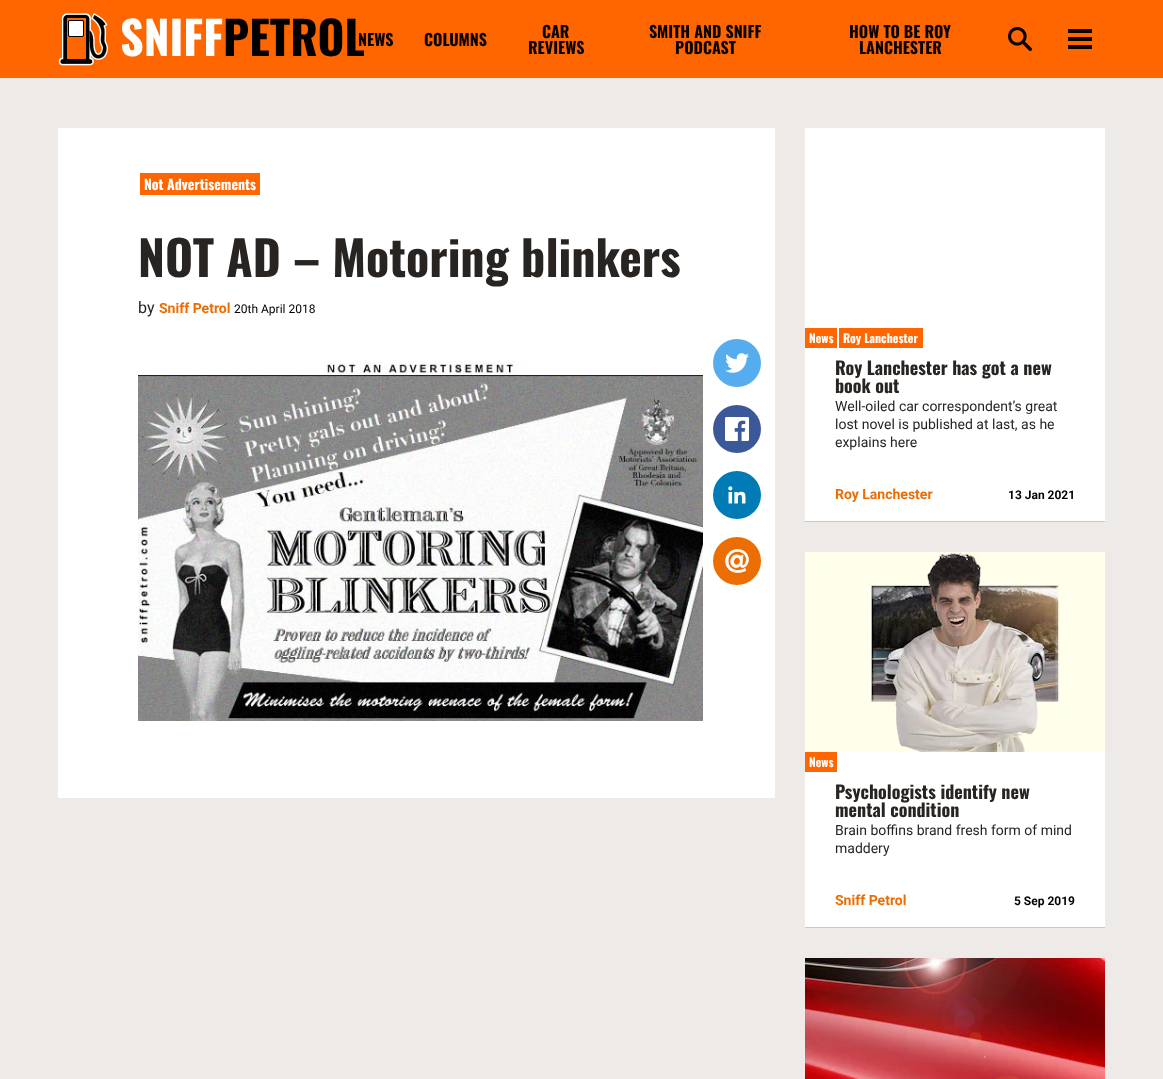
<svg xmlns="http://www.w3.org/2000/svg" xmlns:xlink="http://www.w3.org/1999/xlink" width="1163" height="1079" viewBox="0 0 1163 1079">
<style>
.cls-1{font:bold 46px Oswald;fill:#ffffff}
.cls-2{font:bold 46px Oswald;fill:#000000}
.cls-3{font:bold 16px Oswald;fill:#080300}
.cls-4{font:bold 14px Oswald;fill:#ffffff}
.cls-5{font:bold 48px Oswald;fill:#282421}
.cls-6{font:16px Roboto;fill:#282421}
.cls-7{font:bold 14px Roboto;fill:#ec6d02}
.cls-8{font:12px Roboto;fill:#000000}
.cls-9{font:bold 12px Oswald;fill:#ffffff}
.cls-10{font:bold 18px Oswald;fill:#282421}
.cls-11{font:14px Roboto;fill:#282421}
.cls-12{font:bold 12px Roboto;fill:#000000}
</style>
<rect width="100%" height="100%" fill="#eeeae7"/>
<rect fill="#ff6600" x="0" y="0" width="1163" height="78"/>
<image xlink:href="image0.png" x="58" y="13" width="50" height="53"/>
<image xlink:href="image1.png" x="1008" y="27" width="24" height="24"/>
<image xlink:href="image2.png" x="1068" y="29" width="24" height="20"/>
<rect fill="#ffffff" x="58" y="128" width="717" height="670"/>
<image xlink:href="image3.png" x="138" y="361" width="565" height="360"/>
<circle fill="#55acee" cx="737" cy="363" r="24"/>
<image xlink:href="image4.png" x="725" y="353" width="24" height="20"/>
<circle fill="#3b5998" cx="737" cy="429" r="24"/>
<image xlink:href="image5.png" x="725" y="417" width="24" height="24"/>
<circle fill="#007bb5" cx="737" cy="495" r="24"/>
<image xlink:href="image6.png" x="728" y="486" width="18" height="18"/>
<circle fill="#ec6d02" cx="737" cy="561" r="24"/>
<image xlink:href="image7.png" x="725" y="549" width="24" height="24"/>
<rect fill="#ff6600" x="140" y="173" width="120" height="22"/>
<rect fill="#ffffff" x="805" y="128" width="300" height="393"/>
<rect fill="#cec9c6" x="805" y="521" width="300" height="1"/>
<rect fill="#ff6600" x="805" y="328" width="32" height="20"/>
<rect fill="#ff6600" x="839" y="328" width="84" height="20"/>
<rect fill="#ffffff" x="805" y="752" width="300" height="175"/>
<rect fill="#cec9c6" x="805" y="927" width="300" height="1"/>
<image xlink:href="image8.png" x="805" y="552" width="300" height="200"/>
<rect fill="#ff6600" x="805" y="752" width="32" height="20"/>
<image xlink:href="image9.png" x="805" y="958" width="300" height="121"/>
<text class="cls-1" x="120" y="56">SNIFF</text>
<text class="cls-2" x="223" y="56">PETROL</text>
<text class="cls-3" x="358" y="46">NEWS</text>
<text class="cls-3" x="424" y="46">COLUMNS</text>
<text class="cls-3" x="542" y="38">CAR</text>
<text class="cls-3" x="528" y="54">REVIEWS</text>
<text class="cls-3" x="649" y="38">SMITH AND SNIFF</text>
<text class="cls-3" x="675" y="54">PODCAST</text>
<text class="cls-3" x="849" y="38">HOW TO BE ROY</text>
<text class="cls-3" x="859" y="54">LANCHESTER</text>
<text class="cls-4" x="144" y="190">Not Advertisements</text>
<text class="cls-5" x="138" y="277">NOT AD – Motoring blinkers</text>
<text class="cls-6" x="138" y="313">by</text>
<text class="cls-7" x="159" y="313">Sniff Petrol</text>
<text class="cls-8" x="234" y="313">20th April 2018</text>
<text class="cls-9" x="809" y="343">News</text>
<text class="cls-9" x="843" y="343">Roy Lanchester</text>
<text class="cls-10"><tspan x="835" y="375">Roy Lanchester has got a new</tspan><tspan x="835" y="393">book out</tspan></text>
<text class="cls-11"><tspan x="835" y="411">Well-oiled car correspondent’s great</tspan><tspan x="835" y="429">lost novel is published at last, as he</tspan><tspan x="835" y="447">explains here</tspan></text>
<text class="cls-7" x="835" y="499">Roy Lanchester</text>
<text class="cls-12" x="1008" y="499">13 Jan 2021</text>
<text class="cls-9" x="809" y="767">News</text>
<text class="cls-10"><tspan x="835" y="799">Psychologists identify new</tspan><tspan x="835" y="817">mental condition</tspan></text>
<text class="cls-11"><tspan x="835" y="835">Brain boffins brand fresh form of mind</tspan><tspan x="835" y="853">maddery</tspan></text>
<text class="cls-7" x="835" y="905">Sniff Petrol</text>
<text class="cls-12" x="1014" y="905">5 Sep 2019</text>
</svg>
